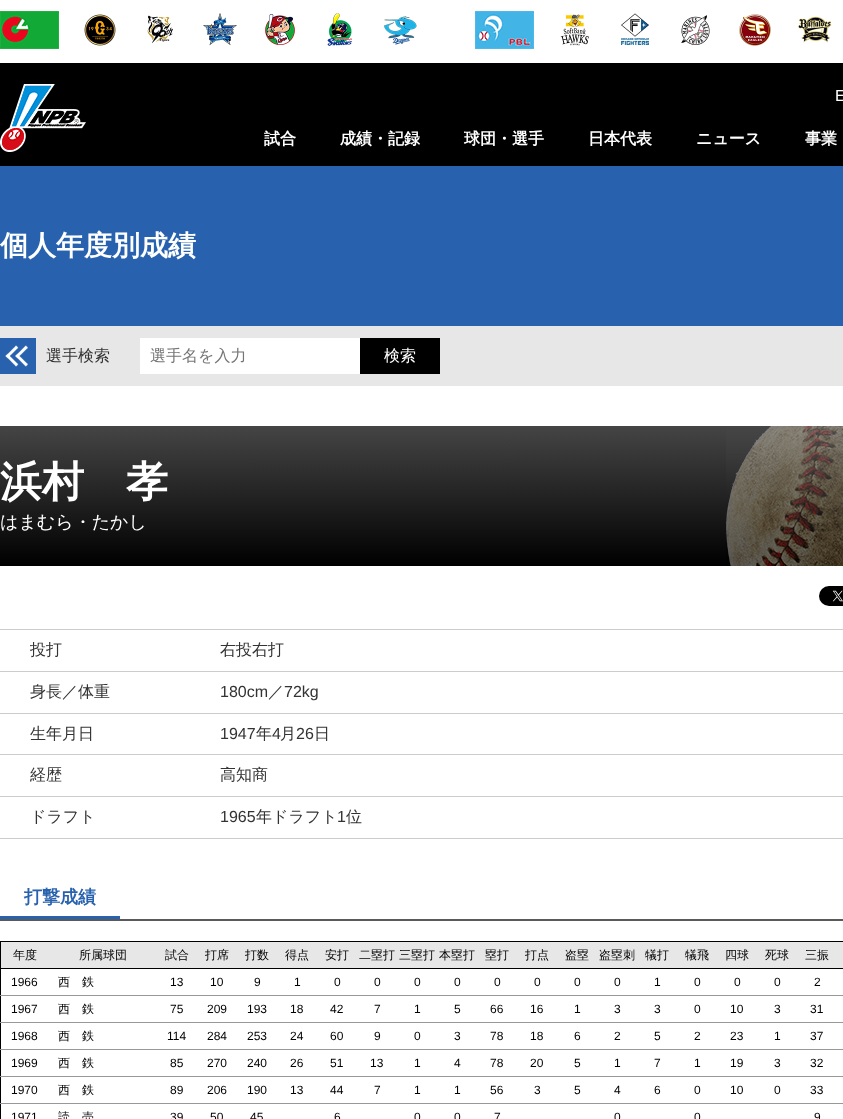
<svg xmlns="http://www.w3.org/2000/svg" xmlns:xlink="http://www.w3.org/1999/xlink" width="843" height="1119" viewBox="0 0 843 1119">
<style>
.cls-1{font:16px Liberation Sans;fill:#ffffff}
.cls-2{font:bold 16px WenQuanYi Zen Hei;fill:#ffffff}
.cls-3{font:bold 28px WenQuanYi Zen Hei;fill:#ffffff}
.cls-4{font:500 16px WenQuanYi Zen Hei;fill:#333333}
.cls-5{font:500 16px WenQuanYi Zen Hei;fill:#757575}
.cls-6{font:500 16px WenQuanYi Zen Hei;fill:#ffffff}
.cls-7{font:bold 42px WenQuanYi Zen Hei;fill:#ffffff}
.cls-8{font:500 18px WenQuanYi Zen Hei;fill:#ffffff}
.cls-9{font:16px Liberation Sans;fill:#333333}
.cls-10{font:bold 18px WenQuanYi Zen Hei;fill:#2862ae}
.cls-11{font:500 12px WenQuanYi Zen Hei;fill:#000000}
.cls-12{font:12px Liberation Sans;fill:#000000}
</style>
<defs>
<linearGradient id="g1" gradientUnits="userSpaceOnUse" x1="422" y1="426" x2="422" y2="566"><stop offset="0" stop-color="#454545"/><stop offset="1" stop-color="#010000"/></linearGradient>
</defs>
<rect width="100%" height="100%" fill="#ffffff"/>
<image xlink:href="image0.png" x="0" y="11" width="59" height="38"/>
<image xlink:href="image1.png" x="84" y="14" width="32" height="32"/>
<image xlink:href="image2.png" x="147" y="15" width="26" height="28"/>
<image xlink:href="image3.png" x="203" y="13" width="34" height="33"/>
<image xlink:href="image4.png" x="265" y="14" width="30" height="31"/>
<image xlink:href="image5.png" x="327" y="13" width="25" height="33"/>
<image xlink:href="image6.png" x="384" y="16" width="33" height="29"/>
<image xlink:href="image7.png" x="475" y="11" width="59" height="38"/>
<image xlink:href="image8.png" x="560" y="14" width="29" height="32"/>
<image xlink:href="image9.png" x="621" y="13" width="28" height="32"/>
<image xlink:href="image10.png" x="681" y="15" width="29" height="30"/>
<image xlink:href="image11.png" x="739" y="14" width="32" height="32"/>
<image xlink:href="image12.png" x="798" y="16" width="34" height="27"/>
<rect fill="#000000" x="0" y="63" width="843" height="103"/>
<image xlink:href="image13.png" x="0" y="84" width="86" height="68"/>
<rect fill="#2862ae" x="0" y="166" width="843" height="160"/>
<rect fill="#e7e7e7" x="0" y="326" width="843" height="60"/>
<image xlink:href="image14.png" x="0" y="338" width="36" height="36"/>
<rect fill="#ffffff" x="140" y="338" width="220" height="36"/>
<rect fill="#000000" x="360" y="338" width="80" height="36"/>
<rect fill="url(#g1)" x="0" y="426" width="726" height="140"/>
<image xlink:href="image15.png" x="726" y="426" width="117" height="140"/>
<image xlink:href="image16.png" x="819" y="586" width="24" height="20"/>
<rect fill="#cccccc" x="0" y="629" width="843" height="1"/>
<rect fill="#cccccc" x="0" y="671" width="843" height="1"/>
<rect fill="#cccccc" x="0" y="713" width="843" height="1"/>
<rect fill="#cccccc" x="0" y="754" width="843" height="1"/>
<rect fill="#cccccc" x="0" y="796" width="843" height="1"/>
<rect fill="#cccccc" x="0" y="838" width="843" height="1"/>
<rect fill="#5a5a5a" x="0" y="919" width="843" height="2"/>
<rect fill="#2862ae" x="0" y="916" width="120" height="3"/>
<rect fill="#e7e7e7" x="837" y="941" width="6" height="27"/>
<rect fill="#000000" x="0" y="941" width="843" height="1"/>
<rect fill="#000000" x="0" y="941" width="1" height="178"/>
<rect fill="#000000" x="0" y="968" width="843" height="1"/>
<rect fill="#e7e7e7" x="1" y="942" width="836" height="26"/>
<rect fill="#989898" x="0" y="995" width="843" height="1"/>
<rect fill="#989898" x="0" y="1022" width="843" height="1"/>
<rect fill="#989898" x="0" y="1049" width="843" height="1"/>
<rect fill="#989898" x="0" y="1076" width="843" height="1"/>
<rect fill="#989898" x="0" y="1103" width="843" height="1"/>
<text class="cls-1" x="835" y="101">E</text>
<text class="cls-2" x="264" y="144">試合</text>
<text class="cls-2" x="340" y="144">成績・記録</text>
<text class="cls-2" x="464" y="144">球団・選手</text>
<text class="cls-2" x="588" y="144">日本代表</text>
<text class="cls-2" x="696" y="144">ニュース</text>
<text class="cls-2" x="805" y="144">事業</text>
<text class="cls-3" x="0" y="255">個人年度別成績</text>
<text class="cls-4" x="46" y="361">選手検索</text>
<text class="cls-5" x="150" y="361">選手名を入力</text>
<text class="cls-6" x="384" y="361">検索</text>
<text class="cls-7" x="0" y="496">浜村　孝</text>
<text class="cls-8" x="0" y="528">はまむら・たかし</text>
<text class="cls-4" x="30" y="655">投打</text>
<text class="cls-4" x="220" y="655">右投右打</text>
<text class="cls-4" x="30" y="697">身長／体重</text>
<text class="cls-9" x="220" y="697">180cm</text>
<text class="cls-4" x="268" y="697">／</text>
<text class="cls-9" x="284" y="697">72kg</text>
<text class="cls-4" x="30" y="739">生年月日</text>
<text class="cls-9" x="220" y="739">1947</text>
<text class="cls-4" x="256" y="739">年</text>
<text class="cls-9" x="272" y="739">4</text>
<text class="cls-4" x="280" y="739">月</text>
<text class="cls-9" x="296" y="739">26</text>
<text class="cls-4" x="314" y="739">日</text>
<text class="cls-4" x="30" y="780">経歴</text>
<text class="cls-4" x="220" y="780">高知商</text>
<text class="cls-4" x="30" y="822">ドラフト</text>
<text class="cls-9" x="220" y="822">1965</text>
<text class="cls-4" x="256" y="822">年ドラフト</text>
<text class="cls-9" x="337" y="822">1</text>
<text class="cls-4" x="346" y="822">位</text>
<text class="cls-10" x="24" y="903">打撃成績</text>
<text class="cls-11" x="13" y="959">年度</text>
<text class="cls-11" x="79" y="959">所属球団</text>
<text class="cls-11" x="165" y="959">試合</text>
<text class="cls-11" x="205" y="959">打席</text>
<text class="cls-11" x="245" y="959">打数</text>
<text class="cls-11" x="285" y="959">得点</text>
<text class="cls-11" x="325" y="959">安打</text>
<text class="cls-11" x="359" y="959">二塁打</text>
<text class="cls-11" x="399" y="959">三塁打</text>
<text class="cls-11" x="439" y="959">本塁打</text>
<text class="cls-11" x="485" y="959">塁打</text>
<text class="cls-11" x="525" y="959">打点</text>
<text class="cls-11" x="565" y="959">盗塁</text>
<text class="cls-11" x="599" y="959">盗塁刺</text>
<text class="cls-11" x="645" y="959">犠打</text>
<text class="cls-11" x="685" y="959">犠飛</text>
<text class="cls-11" x="725" y="959">四球</text>
<text class="cls-11" x="765" y="959">死球</text>
<text class="cls-11" x="805" y="959">三振</text>
<text class="cls-12" x="11" y="986">1966</text>
<text class="cls-11" x="58" y="986">西　鉄</text>
<text class="cls-12" x="170" y="986">13</text>
<text class="cls-12" x="210" y="986">10</text>
<text class="cls-12" x="254" y="986">9</text>
<text class="cls-12" x="294" y="986">1</text>
<text class="cls-12" x="334" y="986">0</text>
<text class="cls-12" x="374" y="986">0</text>
<text class="cls-12" x="414" y="986">0</text>
<text class="cls-12" x="454" y="986">0</text>
<text class="cls-12" x="494" y="986">0</text>
<text class="cls-12" x="534" y="986">0</text>
<text class="cls-12" x="574" y="986">0</text>
<text class="cls-12" x="614" y="986">0</text>
<text class="cls-12" x="654" y="986">1</text>
<text class="cls-12" x="694" y="986">0</text>
<text class="cls-12" x="734" y="986">0</text>
<text class="cls-12" x="774" y="986">0</text>
<text class="cls-12" x="814" y="986">2</text>
<text class="cls-12" x="11" y="1013">1967</text>
<text class="cls-11" x="58" y="1013">西　鉄</text>
<text class="cls-12" x="170" y="1013">75</text>
<text class="cls-12" x="207" y="1013">209</text>
<text class="cls-12" x="247" y="1013">193</text>
<text class="cls-12" x="290" y="1013">18</text>
<text class="cls-12" x="330" y="1013">42</text>
<text class="cls-12" x="374" y="1013">7</text>
<text class="cls-12" x="414" y="1013">1</text>
<text class="cls-12" x="454" y="1013">5</text>
<text class="cls-12" x="490" y="1013">66</text>
<text class="cls-12" x="530" y="1013">16</text>
<text class="cls-12" x="574" y="1013">1</text>
<text class="cls-12" x="614" y="1013">3</text>
<text class="cls-12" x="654" y="1013">3</text>
<text class="cls-12" x="694" y="1013">0</text>
<text class="cls-12" x="730" y="1013">10</text>
<text class="cls-12" x="774" y="1013">3</text>
<text class="cls-12" x="810" y="1013">31</text>
<text class="cls-12" x="11" y="1040">1968</text>
<text class="cls-11" x="58" y="1040">西　鉄</text>
<text class="cls-12" x="167" y="1040">114</text>
<text class="cls-12" x="207" y="1040">284</text>
<text class="cls-12" x="247" y="1040">253</text>
<text class="cls-12" x="290" y="1040">24</text>
<text class="cls-12" x="330" y="1040">60</text>
<text class="cls-12" x="374" y="1040">9</text>
<text class="cls-12" x="414" y="1040">0</text>
<text class="cls-12" x="454" y="1040">3</text>
<text class="cls-12" x="490" y="1040">78</text>
<text class="cls-12" x="530" y="1040">18</text>
<text class="cls-12" x="574" y="1040">6</text>
<text class="cls-12" x="614" y="1040">2</text>
<text class="cls-12" x="654" y="1040">5</text>
<text class="cls-12" x="694" y="1040">2</text>
<text class="cls-12" x="730" y="1040">23</text>
<text class="cls-12" x="774" y="1040">1</text>
<text class="cls-12" x="810" y="1040">37</text>
<text class="cls-12" x="11" y="1067">1969</text>
<text class="cls-11" x="58" y="1067">西　鉄</text>
<text class="cls-12" x="170" y="1067">85</text>
<text class="cls-12" x="207" y="1067">270</text>
<text class="cls-12" x="247" y="1067">240</text>
<text class="cls-12" x="290" y="1067">26</text>
<text class="cls-12" x="330" y="1067">51</text>
<text class="cls-12" x="370" y="1067">13</text>
<text class="cls-12" x="414" y="1067">1</text>
<text class="cls-12" x="454" y="1067">4</text>
<text class="cls-12" x="490" y="1067">78</text>
<text class="cls-12" x="530" y="1067">20</text>
<text class="cls-12" x="574" y="1067">5</text>
<text class="cls-12" x="614" y="1067">1</text>
<text class="cls-12" x="654" y="1067">7</text>
<text class="cls-12" x="694" y="1067">1</text>
<text class="cls-12" x="730" y="1067">19</text>
<text class="cls-12" x="774" y="1067">3</text>
<text class="cls-12" x="810" y="1067">32</text>
<text class="cls-12" x="11" y="1094">1970</text>
<text class="cls-11" x="58" y="1094">西　鉄</text>
<text class="cls-12" x="170" y="1094">89</text>
<text class="cls-12" x="207" y="1094">206</text>
<text class="cls-12" x="247" y="1094">190</text>
<text class="cls-12" x="290" y="1094">13</text>
<text class="cls-12" x="330" y="1094">44</text>
<text class="cls-12" x="374" y="1094">7</text>
<text class="cls-12" x="414" y="1094">1</text>
<text class="cls-12" x="454" y="1094">1</text>
<text class="cls-12" x="490" y="1094">56</text>
<text class="cls-12" x="534" y="1094">3</text>
<text class="cls-12" x="574" y="1094">5</text>
<text class="cls-12" x="614" y="1094">4</text>
<text class="cls-12" x="654" y="1094">6</text>
<text class="cls-12" x="694" y="1094">0</text>
<text class="cls-12" x="730" y="1094">10</text>
<text class="cls-12" x="774" y="1094">0</text>
<text class="cls-12" x="810" y="1094">33</text>
<text class="cls-12" x="11" y="1121">1971</text>
<text class="cls-11" x="58" y="1121">読　売</text>
<text class="cls-12" x="170" y="1121">39</text>
<text class="cls-12" x="210" y="1121">50</text>
<text class="cls-12" x="250" y="1121">45</text>
<text class="cls-12" x="334" y="1121">6</text>
<text class="cls-12" x="414" y="1121">0</text>
<text class="cls-12" x="454" y="1121">0</text>
<text class="cls-12" x="494" y="1121">7</text>
<text class="cls-12" x="614" y="1121">0</text>
<text class="cls-12" x="694" y="1121">0</text>
<text class="cls-12" x="814" y="1121">9</text>
</svg>
